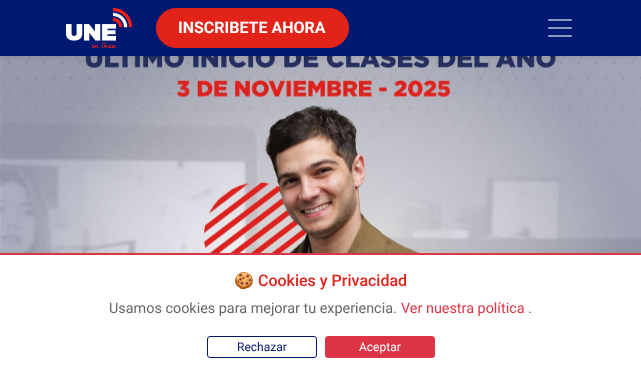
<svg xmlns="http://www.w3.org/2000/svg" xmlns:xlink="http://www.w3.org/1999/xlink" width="641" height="374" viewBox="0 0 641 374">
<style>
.cls-1{font:bold 16px Roboto;fill:#ffffff}
.cls-2{font:16px Noto Color Emoji;fill:#e2231a}
.cls-3{font:500 16px Roboto;fill:#e2231a}
.cls-4{font:14.4px Roboto;fill:#646669}
.cls-5{font:14.4px Roboto;fill:#dc3545}
.cls-6{font:12px Roboto;fill:#001970}
.cls-7{font:12px Roboto;fill:#ffffff}
</style>
<rect width="100%" height="100%" fill="#ffffff"/>
<image xlink:href="image2.png" x="0" y="56" width="641" height="197"/>
<rect fill="#000000" fill-opacity="0.07" filter="blur(2px)" x="0" y="2" width="641" height="56"/>
<rect fill="#001970" x="0" y="0" width="641" height="56"/>
<image xlink:href="image0.png" x="66" y="8" width="66" height="40"/>
<rect fill="#e2231a" stroke="#e2231a" x="156.5" y="8.5" width="192" height="39" rx="19.5"/>
<image xlink:href="image1.png" x="548" y="19" width="24" height="18"/>
<rect fill="#000000" fill-opacity="0.15" filter="blur(8px)" x="0" y="261" width="641" height="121"/>
<rect fill="#ffffff" x="0" y="255" width="641" height="119"/>
<rect fill="#dc3545" x="0" y="253" width="641" height="2"/>
<rect fill="none" stroke="#001970" x="207.5" y="336.5" width="109" height="21" rx="2.5"/>
<rect fill="#dc3545" stroke="#dc3545" x="325.5" y="336.5" width="109" height="21" rx="2.5"/>
<text class="cls-1" x="178" y="33">INSCRIBETE AHORA</text>
<text class="cls-2" x="234" y="286">🍪</text>
<text class="cls-3" x="258" y="286">Cookies y Privacidad</text>
<text class="cls-4" x="109" y="313">Usamos cookies para mejorar tu experiencia.</text>
<text class="cls-5" x="401" y="313">Ver nuestra política</text>
<text class="cls-4" x="528" y="313">.</text>
<text class="cls-6" x="237" y="351">Rechazar</text>
<text class="cls-7" x="359" y="351">Aceptar</text>
</svg>
